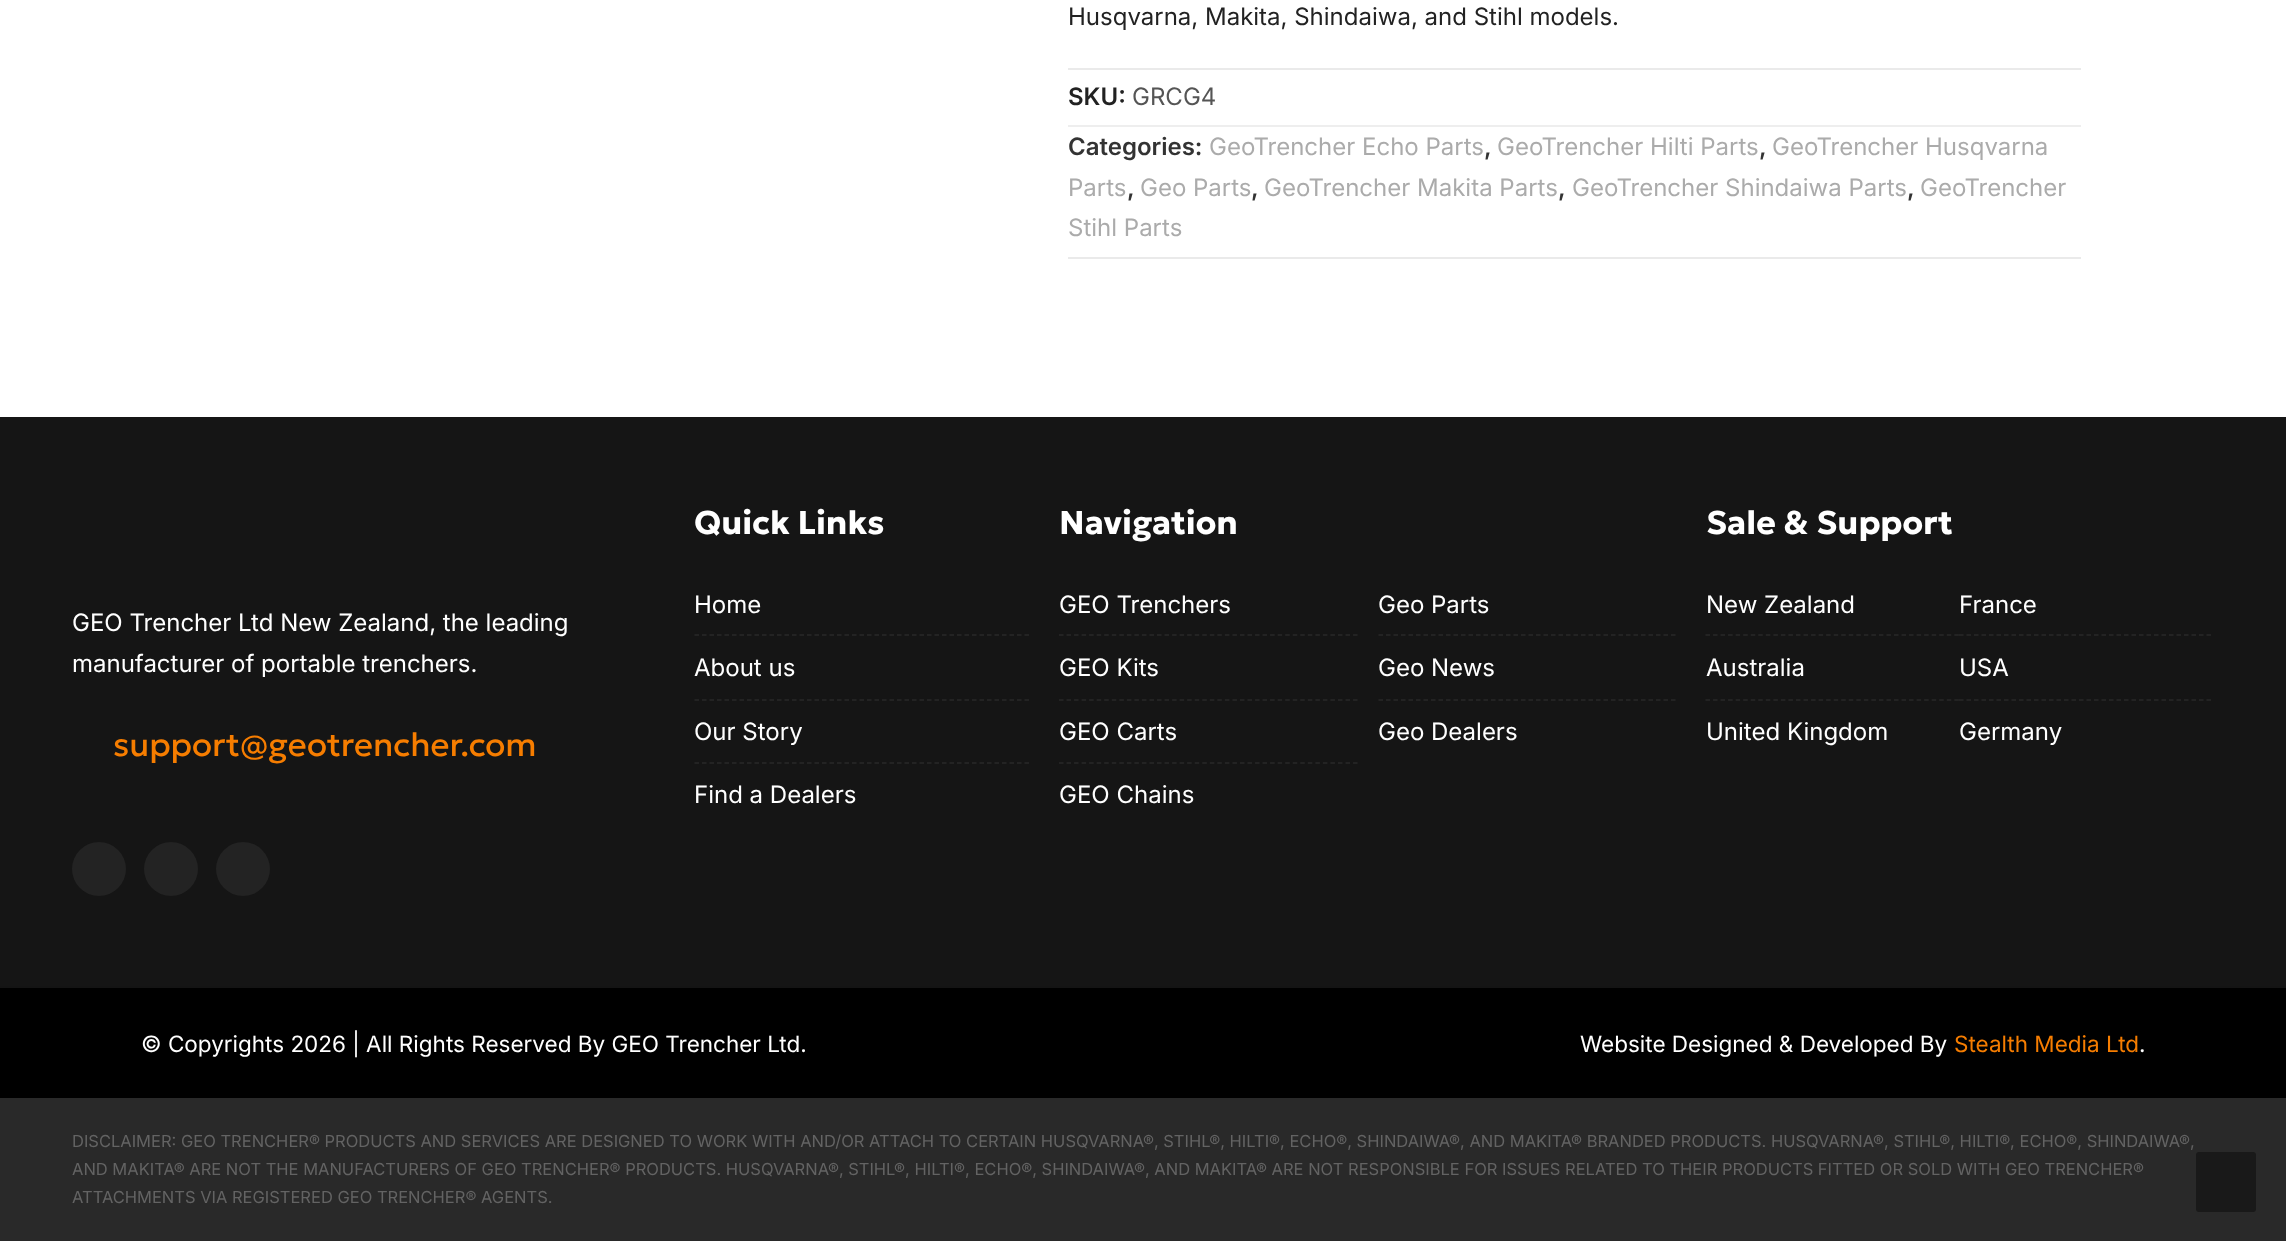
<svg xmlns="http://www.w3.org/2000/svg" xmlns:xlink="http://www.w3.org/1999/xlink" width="2286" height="1241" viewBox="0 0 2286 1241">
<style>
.cls-1{font:24px Inter;fill:#222222}
.cls-2{font:600 24px Inter;fill:#222222}
.cls-3{font:24px Inter;fill:#555555}
.cls-4{font:600 24px Inter;fill:#333333}
.cls-5{font:24px Inter;fill:#ababab}
.cls-6{font:24px Inter;fill:#ffffff}
.cls-7{font:33px Geologica;fill:#f67d00}
.cls-8{font:bold 33px Geologica;fill:#ffffff}
.cls-9{font:22.5px Inter;fill:#ffffff}
.cls-10{font:22.5px Inter;fill:#f67d00}
.cls-11{font:16.5px Inter;fill:#636363}
</style>
<rect width="100%" height="100%" fill="#ffffff"/>
<rect fill="#eaeaea" x="1068" y="68" width="1013" height="2"/>
<rect fill="#eaeaea" x="1068" y="257" width="1013" height="2"/>
<rect fill="#eeeeee" x="1068" y="125" width="1013" height="2"/>
<rect fill="#151515" x="0" y="417" width="2286" height="569"/>
<circle fill="#232323" cx="99" cy="869" r="27"/>
<circle fill="#232323" cx="171" cy="869" r="27"/>
<circle fill="#232323" cx="243" cy="869" r="27"/>
<path fill="none" stroke="#292929" stroke-width="1.5" stroke-dasharray="4.5 3" d="M694.5 635H1029"/>
<path fill="none" stroke="#292929" stroke-width="1.5" stroke-dasharray="4.5 3" d="M694.5 700H1029"/>
<path fill="none" stroke="#292929" stroke-width="1.5" stroke-dasharray="4.5 3" d="M694.5 763H1029"/>
<path fill="none" stroke="#292929" stroke-width="1.5" stroke-dasharray="4.5 3.04" d="M1059 635H1357.5"/>
<path fill="none" stroke="#292929" stroke-width="1.5" stroke-dasharray="4.5 3.04" d="M1059 700H1357.5"/>
<path fill="none" stroke="#292929" stroke-width="1.5" stroke-dasharray="4.5 3.04" d="M1059 763H1357.5"/>
<path fill="none" stroke="#292929" stroke-width="1.5" stroke-dasharray="4.5 3" d="M1378.5 635H1675.5"/>
<path fill="none" stroke="#292929" stroke-width="1.5" stroke-dasharray="4.5 3" d="M1378.5 700H1675.5"/>
<path fill="none" stroke="#292929" stroke-width="1.5" stroke-dasharray="4.5 3.04" d="M1705.5 635H1959"/>
<path fill="none" stroke="#292929" stroke-width="1.5" stroke-dasharray="4.5 3.04" d="M1705.5 700H1959"/>
<path fill="none" stroke="#292929" stroke-width="1.5" stroke-dasharray="4.5 3" d="M1959 635H2211"/>
<path fill="none" stroke="#292929" stroke-width="1.5" stroke-dasharray="4.5 3" d="M1959 700H2211"/>
<rect fill="#000000" x="0" y="988" width="2286" height="110"/>
<rect fill="#141414" x="0" y="986" width="2286" height="2"/>
<rect fill="#292929" x="0" y="1098" width="2286" height="143"/>
<rect fill="#191919" x="2196" y="1152" width="60" height="60" rx="3"/>
<text class="cls-1" x="1068" y="25">Husqvarna, Makita, Shindaiwa, and Stihl models.</text>
<text class="cls-2" x="1068" y="105">SKU:</text>
<text class="cls-3" x="1132" y="105">GRCG4</text>
<text class="cls-4" x="1068" y="155">Categories:</text>
<text class="cls-5" x="1209" y="155">GeoTrencher Echo Parts</text>
<text class="cls-4" x="1484" y="155">,</text>
<text class="cls-5" x="1497" y="155">GeoTrencher Hilti Parts</text>
<text class="cls-4" x="1759" y="155">,</text>
<text class="cls-5" x="1772" y="155">GeoTrencher Husqvarna</text>
<text class="cls-5" x="1068" y="196">Parts</text>
<text class="cls-4" x="1127" y="196">,</text>
<text class="cls-5" x="1140" y="196">Geo Parts</text>
<text class="cls-4" x="1251" y="196">,</text>
<text class="cls-5" x="1264" y="196">GeoTrencher Makita Parts</text>
<text class="cls-4" x="1558" y="196">,</text>
<text class="cls-5" x="1572" y="196">GeoTrencher Shindaiwa Parts</text>
<text class="cls-4" x="1907" y="196">,</text>
<text class="cls-5" x="1920" y="196">GeoTrencher</text>
<text class="cls-5" x="1068" y="236">Stihl Parts</text>
<text class="cls-6"><tspan x="72" y="631">GEO Trencher Ltd New Zealand, the leading</tspan><tspan x="72" y="672">manufacturer of portable trenchers.</tspan></text>
<text class="cls-7" x="113" y="756">support@geotrencher.com</text>
<text class="cls-8" x="694" y="534">Quick Links</text>
<text class="cls-6" x="694" y="613">Home</text>
<text class="cls-6" x="694" y="676">About us</text>
<text class="cls-6" x="694" y="740">Our Story</text>
<text class="cls-6" x="694" y="803">Find a Dealers</text>
<text class="cls-8" x="1059" y="534">Navigation</text>
<text class="cls-6" x="1059" y="613">GEO Trenchers</text>
<text class="cls-6" x="1059" y="676">GEO Kits</text>
<text class="cls-6" x="1059" y="740">GEO Carts</text>
<text class="cls-6" x="1059" y="803">GEO Chains</text>
<text class="cls-6" x="1378" y="613">Geo Parts</text>
<text class="cls-6" x="1378" y="676">Geo News</text>
<text class="cls-6" x="1378" y="740">Geo Dealers</text>
<text class="cls-8" x="1706" y="534">Sale &amp; Support</text>
<text class="cls-6" x="1706" y="613">New Zealand</text>
<text class="cls-6" x="1706" y="676">Australia</text>
<text class="cls-6" x="1706" y="740">United Kingdom</text>
<text class="cls-6" x="1959" y="613">France</text>
<text class="cls-6" x="1959" y="676">USA</text>
<text class="cls-6" x="1959" y="740">Germany</text>
<text class="cls-9" x="141" y="1052">© Copyrights 2026 | All Rights Reserved By GEO Trencher Ltd.</text>
<text class="cls-9" x="1580" y="1052">Website Designed &amp; Developed By</text>
<text class="cls-10" x="1954" y="1052">Stealth Media Ltd</text>
<text class="cls-9" x="2139" y="1052">.</text>
<text class="cls-11"><tspan x="72" y="1147">DISCLAIMER: GEO TRENCHER® PRODUCTS AND SERVICES ARE DESIGNED TO WORK WITH AND/OR ATTACH TO CERTAIN HUSQVARNA®, STIHL®, HILTI®, ECHO®, SHINDAIWA®, AND MAKITA® BRANDED PRODUCTS. HUSQVARNA®, STIHL®, HILTI®, ECHO®, SHINDAIWA®,</tspan><tspan x="72" y="1175">AND MAKITA® ARE NOT THE MANUFACTURERS OF GEO TRENCHER® PRODUCTS. HUSQVARNA®, STIHL®, HILTI®, ECHO®, SHINDAIWA®, AND MAKITA® ARE NOT RESPONSIBLE FOR ISSUES RELATED TO THEIR PRODUCTS FITTED OR SOLD WITH GEO TRENCHER®</tspan><tspan x="72" y="1203">ATTACHMENTS VIA REGISTERED GEO TRENCHER® AGENTS.</tspan></text>
</svg>
